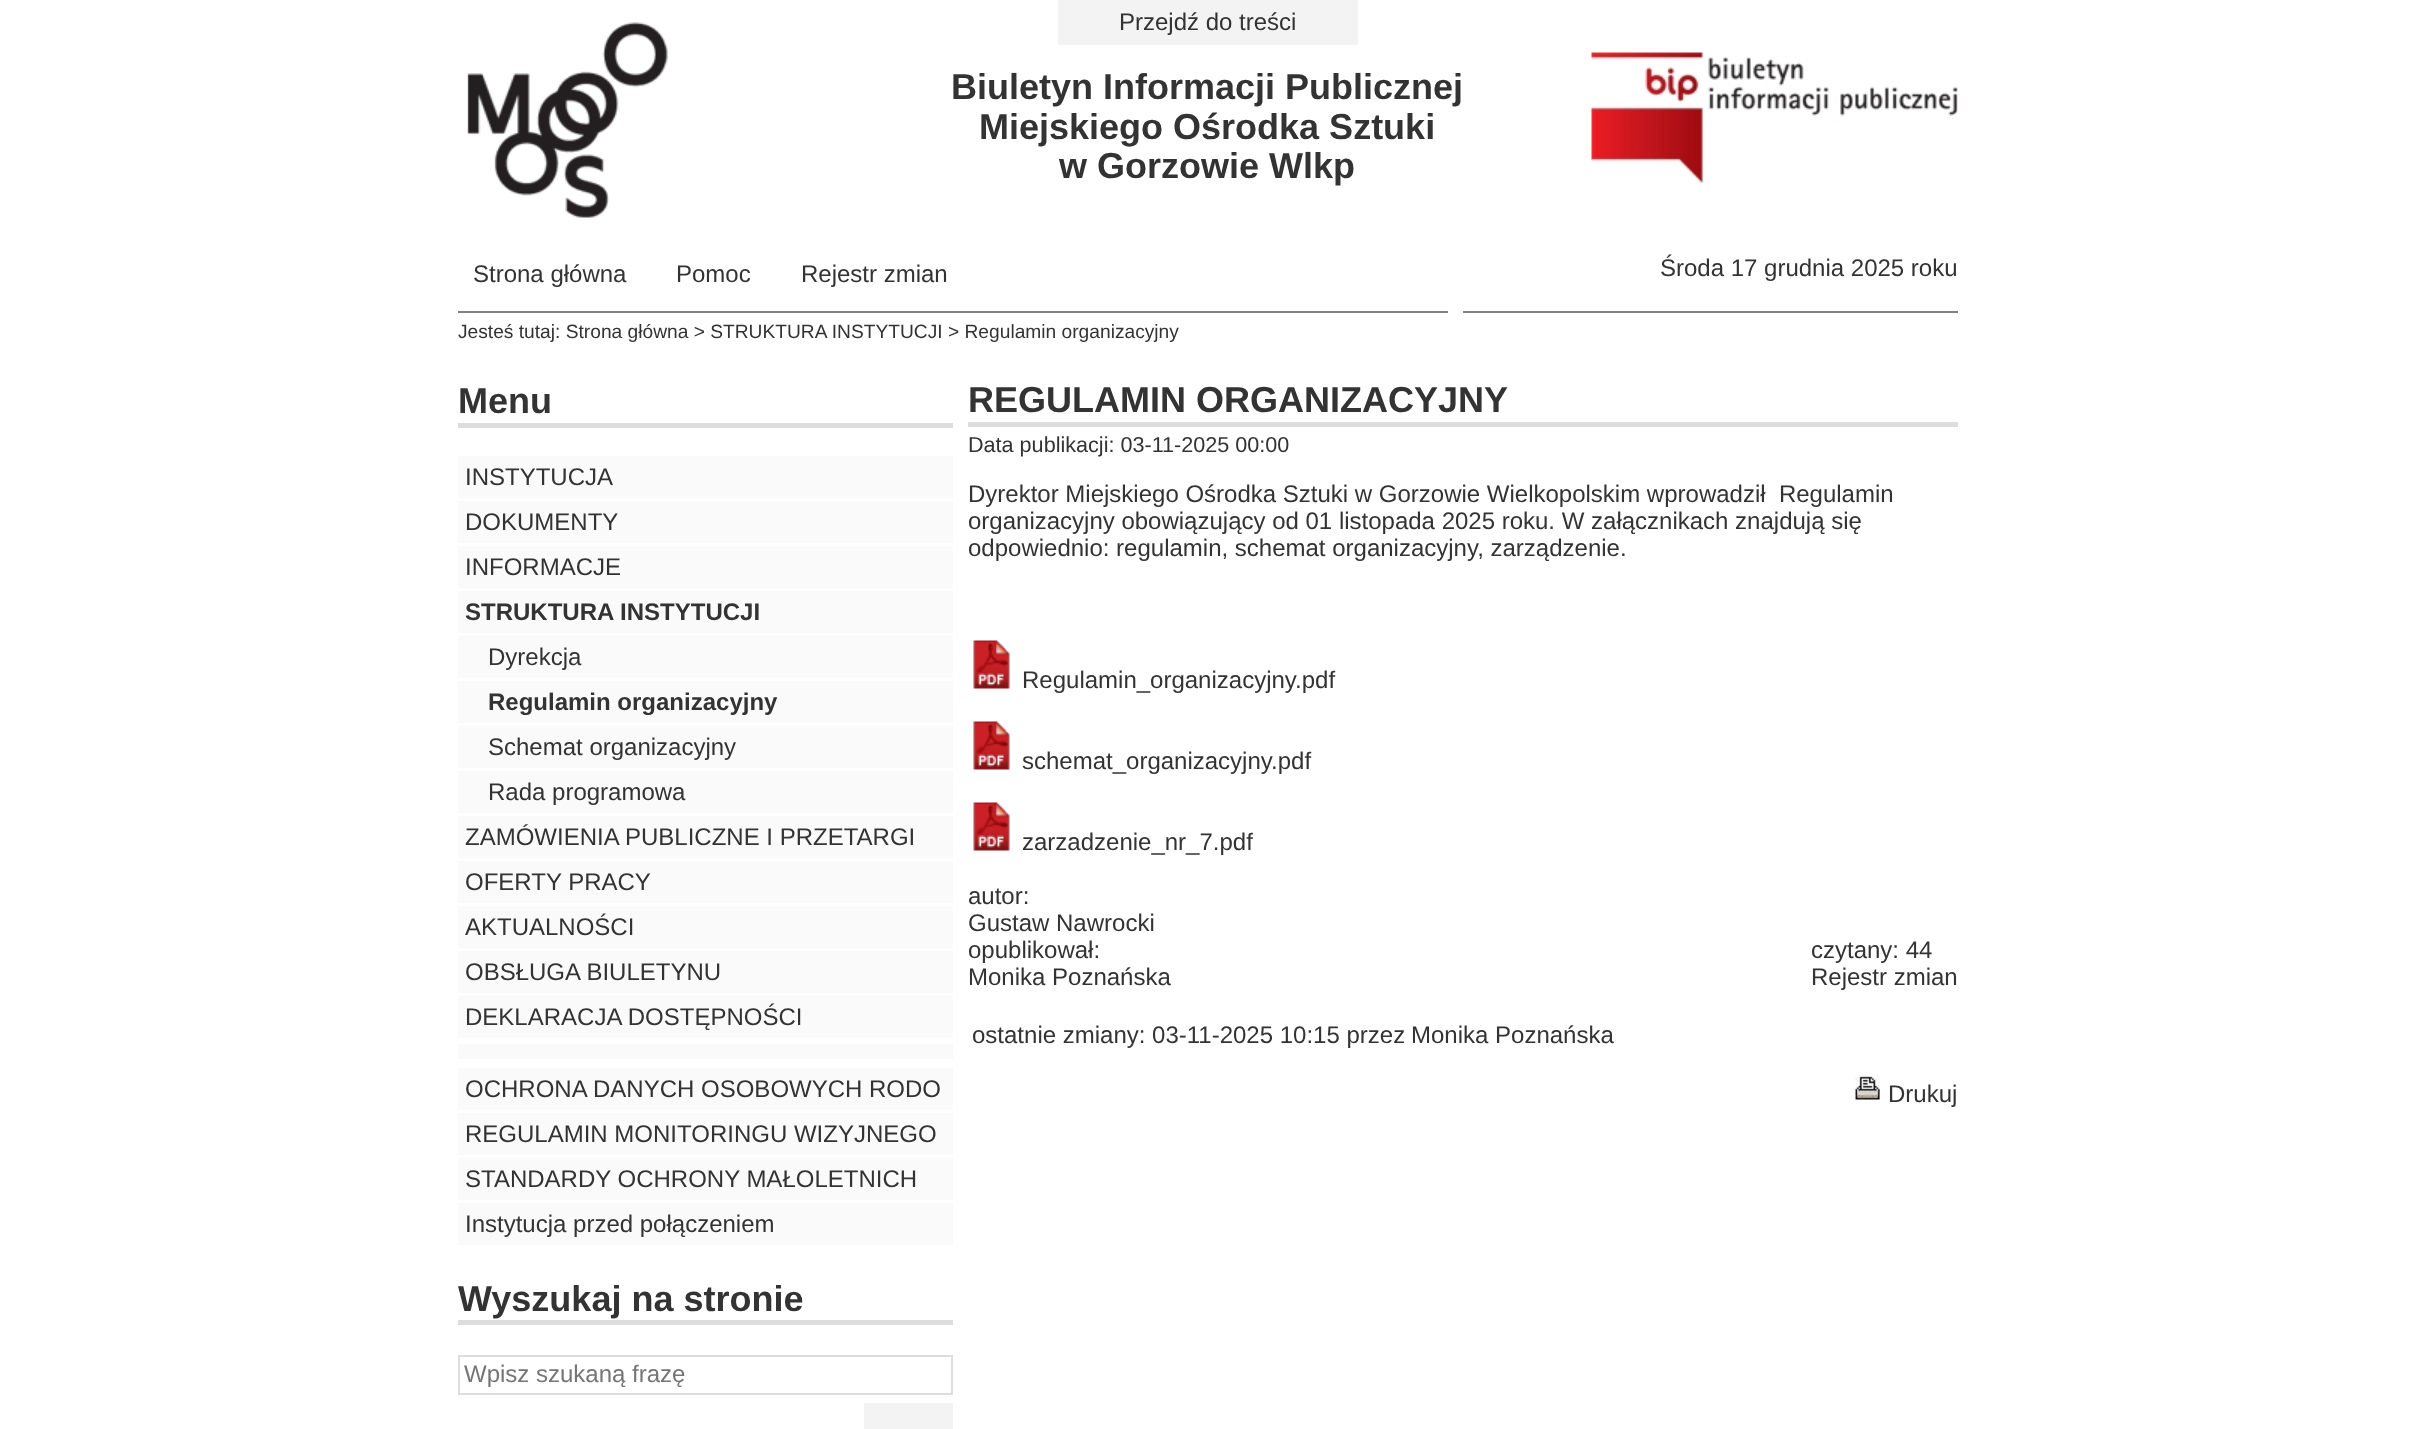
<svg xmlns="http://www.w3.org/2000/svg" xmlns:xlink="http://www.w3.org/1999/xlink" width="2414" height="1429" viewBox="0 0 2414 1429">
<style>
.cls-1{font:24px Liberation Sans;fill:#333333}
.cls-2{font:bold 36px Liberation Sans;fill:#333333}
.cls-3{font:19.2px Liberation Sans;fill:#333333}
.cls-4{font:bold 24px Liberation Sans;fill:#333333}
.cls-5{font:24px Liberation Sans;fill:#757575}
.cls-6{font:21.6px Liberation Sans;fill:#333333}
</style>
<rect width="100%" height="100%" fill="#ffffff"/>
<rect fill="#f3f3f3" x="1058" y="0" width="300" height="45"/>
<image xlink:href="image0.png" x="467" y="22" width="201" height="196"/>
<image xlink:href="image1.png" x="1591" y="52" width="367" height="131"/>
<rect fill="#808080" x="458" y="311" width="990" height="2"/>
<rect fill="#808080" x="1463" y="311" width="495" height="2"/>
<rect fill="#dddddd" x="458" y="423" width="495" height="5"/>
<rect fill="#fafafa" x="458" y="456" width="495" height="42"/>
<rect fill="#fafafa" x="458" y="501" width="495" height="42"/>
<rect fill="#fafafa" x="458" y="546" width="495" height="42"/>
<rect fill="#fafafa" x="458" y="591" width="495" height="42"/>
<rect fill="#fafafa" x="458" y="636" width="495" height="42"/>
<rect fill="#fafafa" x="458" y="681" width="495" height="42"/>
<rect fill="#fafafa" x="458" y="726" width="495" height="42"/>
<rect fill="#fafafa" x="458" y="771" width="495" height="42"/>
<rect fill="#fafafa" x="458" y="816" width="495" height="42"/>
<rect fill="#fafafa" x="458" y="861" width="495" height="42"/>
<rect fill="#fafafa" x="458" y="906" width="495" height="42"/>
<rect fill="#fafafa" x="458" y="951" width="495" height="42"/>
<rect fill="#fafafa" x="458" y="996" width="495" height="42"/>
<rect fill="#fafafa" x="458" y="1044" width="495" height="15"/>
<rect fill="#fafafa" x="458" y="1068" width="495" height="42"/>
<rect fill="#fafafa" x="458" y="1113" width="495" height="42"/>
<rect fill="#fafafa" x="458" y="1158" width="495" height="42"/>
<rect fill="#fafafa" x="458" y="1203" width="495" height="42"/>
<rect fill="#dddddd" x="458" y="1320" width="495" height="5"/>
<rect fill="none" stroke="#dddddd" stroke-width="2" x="459" y="1356" width="493" height="38"/>
<rect fill="#f3f3f3" x="864" y="1403" width="89" height="26"/>
<rect fill="#dddddd" x="968" y="422" width="990" height="5"/>
<image xlink:href="image2.png" x="973" y="640" width="37" height="49"/>
<image xlink:href="image2.png" x="973" y="721" width="37" height="49"/>
<image xlink:href="image2.png" x="973" y="802" width="37" height="49"/>
<image xlink:href="image3.png" x="1855" y="1075" width="25" height="25"/>
<text class="cls-1" x="1119" y="30">Przejdź do treści</text>
<text class="cls-2" x="951" y="99">Biuletyn Informacji Publicznej</text>
<text class="cls-2" x="979" y="139">Miejskiego Ośrodka Sztuki</text>
<text class="cls-2" x="1059" y="178">w Gorzowie Wlkp</text>
<text class="cls-1" x="473" y="282">Strona główna</text>
<text class="cls-1" x="676" y="282">Pomoc</text>
<text class="cls-1" x="801" y="282">Rejestr zmian</text>
<text class="cls-1" x="1660" y="276">Środa 17 grudnia 2025 roku</text>
<text class="cls-3" x="458" y="338">Jesteś tutaj: Strona główna &gt; STRUKTURA INSTYTUCJI &gt; Regulamin organizacyjny</text>
<text class="cls-2" x="458" y="413">Menu</text>
<text class="cls-1"><tspan x="465" y="485">INSTYTUCJA</tspan><tspan x="465" y="530">DOKUMENTY</tspan><tspan x="465" y="575">INFORMACJE</tspan></text>
<text class="cls-4" x="465" y="620">STRUKTURA INSTYTUCJI</text>
<text class="cls-1" x="488" y="665">Dyrekcja</text>
<text class="cls-4" x="488" y="710">Regulamin organizacyjny</text>
<text class="cls-1"><tspan x="488" y="755">Schemat organizacyjny</tspan><tspan x="488" y="800">Rada programowa</tspan></text>
<text class="cls-1"><tspan x="465" y="845">ZAMÓWIENIA PUBLICZNE I PRZETARGI</tspan><tspan x="465" y="890">OFERTY PRACY</tspan><tspan x="465" y="935">AKTUALNOŚCI</tspan><tspan x="465" y="980">OBSŁUGA BIULETYNU</tspan><tspan x="465" y="1025">DEKLARACJA DOSTĘPNOŚCI</tspan></text>
<text class="cls-1"><tspan x="465" y="1097">OCHRONA DANYCH OSOBOWYCH RODO</tspan><tspan x="465" y="1142">REGULAMIN MONITORINGU WIZYJNEGO</tspan><tspan x="465" y="1187">STANDARDY OCHRONY MAŁOLETNICH</tspan><tspan x="465" y="1232">Instytucja przed połączeniem</tspan></text>
<text class="cls-2" x="458" y="1311">Wyszukaj na stronie</text>
<text class="cls-5" x="464" y="1382">Wpisz szukaną frazę</text>
<text class="cls-2" x="968" y="412">REGULAMIN ORGANIZACYJNY</text>
<text class="cls-6" x="968" y="452">Data publikacji: 03-11-2025 00:00</text>
<text class="cls-1" xml:space="preserve"><tspan x="968" y="502">Dyrektor Miejskiego Ośrodka Sztuki w Gorzowie Wielkopolskim wprowadził  Regulamin</tspan><tspan x="968" y="529">organizacyjny obowiązujący od 01 listopada 2025 roku. W załącznikach znajdują się</tspan><tspan x="968" y="556">odpowiednio: regulamin, schemat organizacyjny, zarządzenie.</tspan></text>
<text class="cls-1" x="1022" y="688">Regulamin_organizacyjny.pdf</text>
<text class="cls-1" x="1022" y="769">schemat_organizacyjny.pdf</text>
<text class="cls-1" x="1022" y="850">zarzadzenie_nr_7.pdf</text>
<text class="cls-1"><tspan x="968" y="904">autor:</tspan><tspan x="968" y="931">Gustaw Nawrocki</tspan><tspan x="968" y="958">opublikował:</tspan><tspan x="968" y="985">Monika Poznańska</tspan></text>
<text class="cls-1" x="972" y="1043">ostatnie zmiany: 03-11-2025 10:15 przez</text>
<text class="cls-1" x="1411" y="1043">Monika Poznańska</text>
<text class="cls-1"><tspan x="1811" y="958">czytany: 44</tspan><tspan x="1811" y="985">Rejestr zmian</tspan></text>
<text class="cls-1" x="1888" y="1102">Drukuj</text>
</svg>
